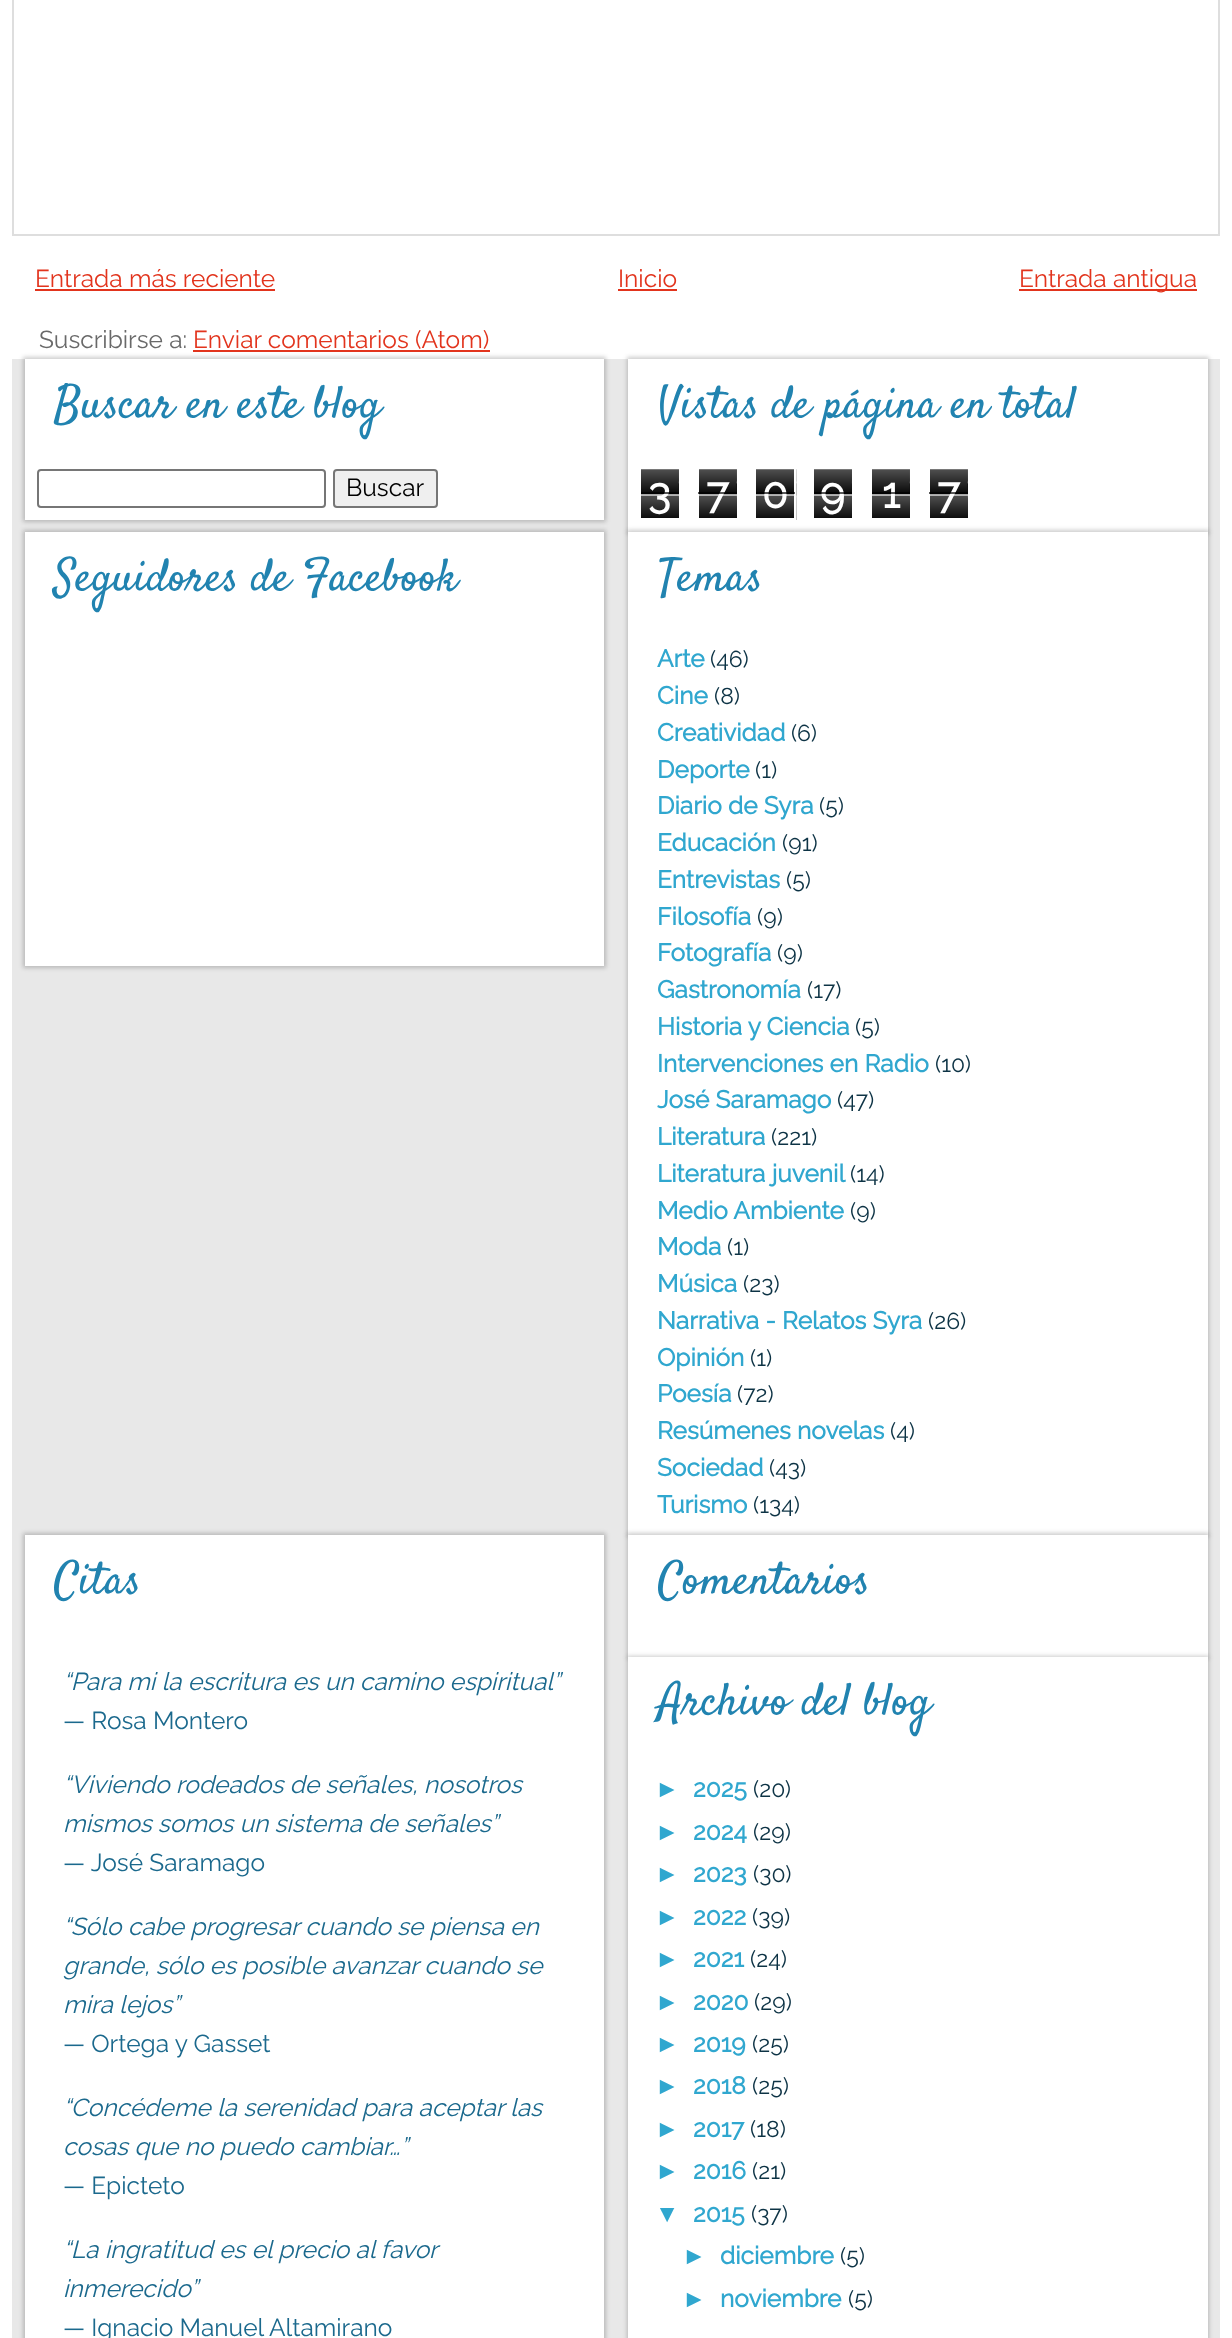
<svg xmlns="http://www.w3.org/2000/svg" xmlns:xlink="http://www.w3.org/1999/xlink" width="1232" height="2338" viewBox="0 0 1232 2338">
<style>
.cls-1{font:100 24.5px Raleway;fill:#e2341d}
.cls-2{font:100 24.5px Raleway;fill:#696969}
.cls-3{font:45.5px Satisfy;fill:#2183b0}
.cls-4{font:100 24.5px Raleway;fill:#000000}
.cls-5{font:bold 42px Raleway;fill:#ffffff}
.cls-6{font:bold 24.5px Raleway;fill:#30a7cf}
.cls-7{font:100 23px Raleway;fill:#0d3345}
.cls-8{font:italic 100 24.5px Raleway;fill:#1b698d}
.cls-9{font:100 24.5px Raleway;fill:#1b698d}
.cls-10{font:bold 24.5px Liberation Sans;fill:#30a7cf}
</style>
<rect width="100%" height="100%" fill="#ffffff"/>
<rect fill="none" stroke="#dedede" stroke-width="2" x="13" y="-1" width="1206" height="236"/>
<rect fill="#e2341d" x="35" y="289" width="240" height="2"/>
<rect fill="#e2341d" x="618" y="289" width="59" height="2"/>
<rect fill="#e2341d" x="1019" y="289" width="178" height="2"/>
<rect fill="#e8e8e8" x="12" y="359" width="1208" height="1979"/>
<rect fill="#000000" fill-opacity="0.2" filter="blur(2px)" x="23" y="357" width="583" height="165"/>
<rect fill="#e2341d" x="193" y="350" width="297" height="2"/>
<rect fill="#ffffff" x="25" y="359" width="579" height="161"/>
<rect fill="none" stroke="#767676" stroke-width="2" x="38" y="470" width="287" height="37" rx="3"/>
<rect fill="#efefef" stroke="#767676" stroke-width="2" x="334" y="470" width="103" height="37" rx="3"/>
<rect fill="#000000" fill-opacity="0.2" filter="blur(2px)" x="627" y="357" width="582" height="177"/>
<rect fill="#ffffff" x="628" y="359" width="580" height="173"/>
<image xlink:href="image0.png" x="641" y="469" width="38" height="49"/>
<image xlink:href="image1.png" x="699" y="469" width="38" height="49"/>
<image xlink:href="image2.png" x="756" y="469" width="41" height="51"/>
<rect fill="none" stroke="#ffffff" stroke-width="2" x="755" y="468" width="40" height="51"/>
<image xlink:href="image3.png" x="814" y="469" width="38" height="49"/>
<image xlink:href="image0.png" x="872" y="469" width="38" height="49"/>
<image xlink:href="image1.png" x="930" y="469" width="38" height="49"/>
<rect fill="#000000" fill-opacity="0.2" filter="blur(2px)" x="23" y="530" width="583" height="438"/>
<rect fill="#ffffff" x="25" y="532" width="579" height="434"/>
<rect fill="#000000" fill-opacity="0.2" filter="blur(2px)" x="627" y="530" width="582" height="1007"/>
<rect fill="#ffffff" x="628" y="532" width="580" height="1003"/>
<rect fill="#000000" fill-opacity="0.2" filter="blur(2px)" x="23" y="1533" width="583" height="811"/>
<rect fill="#ffffff" x="25" y="1535" width="579" height="803"/>
<rect fill="#000000" fill-opacity="0.2" filter="blur(2px)" x="627" y="1533" width="582" height="126"/>
<rect fill="#ffffff" x="628" y="1535" width="580" height="122"/>
<rect fill="#000000" fill-opacity="0.2" filter="blur(2px)" x="627" y="1656" width="582" height="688"/>
<rect fill="#ffffff" x="628" y="1657" width="580" height="681"/>
<text class="cls-1" x="35" y="287">Entrada más reciente</text>
<text class="cls-1" x="618" y="287">Inicio</text>
<text class="cls-1" x="1019" y="287">Entrada antigua</text>
<text class="cls-2" x="39" y="348">Suscribirse a:</text>
<text class="cls-1" x="193" y="348">Enviar comentarios (Atom)</text>
<text class="cls-3" x="54" y="417">Buscar en este blog</text>
<text class="cls-4" x="346" y="496">Buscar</text>
<text class="cls-3" x="658" y="417">Vistas de página en total</text>
<text class="cls-5" x="648" y="508">3</text>
<rect fill="#000000" fill-opacity="0.65" x="641" y="492" width="38" height="2"/>
<rect fill="#ffffff" fill-opacity="0.65" x="641" y="494" width="38" height="2"/>
<text class="cls-5" x="706" y="508">7</text>
<rect fill="#000000" fill-opacity="0.65" x="698" y="492" width="39" height="2"/>
<rect fill="#ffffff" fill-opacity="0.65" x="698" y="494" width="39" height="2"/>
<text class="cls-5" x="762" y="508">0</text>
<rect fill="#000000" fill-opacity="0.65" x="756" y="492" width="39" height="2"/>
<rect fill="#ffffff" fill-opacity="0.65" x="756" y="494" width="39" height="2"/>
<text class="cls-5" x="820" y="508">9</text>
<rect fill="#000000" fill-opacity="0.65" x="814" y="492" width="38" height="2"/>
<rect fill="#ffffff" fill-opacity="0.65" x="814" y="494" width="38" height="2"/>
<text class="cls-5" x="882" y="508">1</text>
<rect fill="#000000" fill-opacity="0.65" x="872" y="492" width="38" height="2"/>
<rect fill="#ffffff" fill-opacity="0.65" x="872" y="494" width="38" height="2"/>
<text class="cls-5" x="937" y="508">7</text>
<rect fill="#000000" fill-opacity="0.65" x="929" y="492" width="39" height="2"/>
<rect fill="#ffffff" fill-opacity="0.65" x="929" y="494" width="39" height="2"/>
<text class="cls-3" x="54" y="590">Seguidores de Facebook</text>
<text class="cls-3" x="658" y="590">Temas</text>
<text class="cls-6" x="657" y="667">Arte</text>
<text class="cls-7" x="710" y="667">(46)</text>
<text class="cls-6" x="657" y="704">Cine</text>
<text class="cls-7" x="714" y="704">(8)</text>
<text class="cls-6" x="657" y="741">Creatividad</text>
<text class="cls-7" x="791" y="741">(6)</text>
<text class="cls-6" x="657" y="778">Deporte</text>
<text class="cls-7" x="755" y="778">(1)</text>
<text class="cls-6" x="657" y="814">Diario de Syra</text>
<text class="cls-7" x="819" y="814">(5)</text>
<text class="cls-6" x="657" y="851">Educación</text>
<text class="cls-7" x="782" y="851">(91)</text>
<text class="cls-6" x="657" y="888">Entrevistas</text>
<text class="cls-7" x="786" y="888">(5)</text>
<text class="cls-6" x="657" y="925">Filosofía</text>
<text class="cls-7" x="757" y="925">(9)</text>
<text class="cls-6" x="657" y="961">Fotografía</text>
<text class="cls-7" x="777" y="961">(9)</text>
<text class="cls-6" x="657" y="998">Gastronomía</text>
<text class="cls-7" x="807" y="998">(17)</text>
<text class="cls-6" x="657" y="1035">Historia y Ciencia</text>
<text class="cls-7" x="855" y="1035">(5)</text>
<text class="cls-6" x="657" y="1072">Intervenciones en Radio</text>
<text class="cls-7" x="935" y="1072">(10)</text>
<text class="cls-6" x="657" y="1108">José Saramago</text>
<text class="cls-7" x="837" y="1108">(47)</text>
<text class="cls-6" x="657" y="1145">Literatura</text>
<text class="cls-7" x="771" y="1145">(221)</text>
<text class="cls-6" x="657" y="1182">Literatura juvenil</text>
<text class="cls-7" x="850" y="1182">(14)</text>
<text class="cls-6" x="657" y="1219">Medio Ambiente</text>
<text class="cls-7" x="850" y="1219">(9)</text>
<text class="cls-6" x="657" y="1255">Moda</text>
<text class="cls-7" x="727" y="1255">(1)</text>
<text class="cls-6" x="657" y="1292">Música</text>
<text class="cls-7" x="743" y="1292">(23)</text>
<text class="cls-6" x="657" y="1329">Narrativa - Relatos Syra</text>
<text class="cls-7" x="928" y="1329">(26)</text>
<text class="cls-6" x="657" y="1366">Opinión</text>
<text class="cls-7" x="750" y="1366">(1)</text>
<text class="cls-6" x="657" y="1402">Poesía</text>
<text class="cls-7" x="737" y="1402">(72)</text>
<text class="cls-6" x="657" y="1439">Resúmenes novelas</text>
<text class="cls-7" x="890" y="1439">(4)</text>
<text class="cls-6" x="657" y="1476">Sociedad</text>
<text class="cls-7" x="769" y="1476">(43)</text>
<text class="cls-6" x="657" y="1513">Turismo</text>
<text class="cls-7" x="753" y="1513">(134)</text>
<text class="cls-3" x="54" y="1593">Citas</text>
<text class="cls-8" x="63" y="1690">“Para mi la escritura es un camino espiritual”</text>
<text class="cls-9" x="63" y="1729">— Rosa Montero</text>
<text class="cls-8"><tspan x="63" y="1793">“Viviendo rodeados de señales, nosotros</tspan><tspan x="63" y="1832">mismos somos un sistema de señales”</tspan></text>
<text class="cls-9" x="63" y="1871">— José Saramago</text>
<text class="cls-8"><tspan x="63" y="1935">“Sólo cabe progresar cuando se piensa en</tspan><tspan x="63" y="1974">grande, sólo es posible avanzar cuando se</tspan><tspan x="63" y="2013">mira lejos”</tspan></text>
<text class="cls-9" x="63" y="2052">— Ortega y Gasset</text>
<text class="cls-8"><tspan x="63" y="2116">“Concédeme la serenidad para aceptar las</tspan><tspan x="63" y="2155">cosas que no puedo cambiar…”</tspan></text>
<text class="cls-9" x="63" y="2194">— Epicteto</text>
<text class="cls-8"><tspan x="63" y="2258">“La ingratitud es el precio al favor</tspan><tspan x="63" y="2297">inmerecido”</tspan></text>
<text class="cls-9" x="63" y="2336">— Ignacio Manuel Altamirano</text>
<text class="cls-3" x="658" y="1593">Comentarios</text>
<text class="cls-3" x="658" y="1714">Archivo del blog</text>
<text class="cls-10" x="655" y="1797">►</text>
<text class="cls-6" x="693" y="1797">2025</text>
<text class="cls-7" x="753" y="1797">(20)</text>
<text class="cls-10" x="655" y="1840">►</text>
<text class="cls-6" x="693" y="1840">2024</text>
<text class="cls-7" x="753" y="1840">(29)</text>
<text class="cls-10" x="655" y="1882">►</text>
<text class="cls-6" x="693" y="1882">2023</text>
<text class="cls-7" x="753" y="1882">(30)</text>
<text class="cls-10" x="655" y="1925">►</text>
<text class="cls-6" x="693" y="1925">2022</text>
<text class="cls-7" x="752" y="1925">(39)</text>
<text class="cls-10" x="655" y="1967">►</text>
<text class="cls-6" x="693" y="1967">2021</text>
<text class="cls-7" x="750" y="1967">(24)</text>
<text class="cls-10" x="655" y="2010">►</text>
<text class="cls-6" x="693" y="2010">2020</text>
<text class="cls-7" x="754" y="2010">(29)</text>
<text class="cls-10" x="655" y="2052">►</text>
<text class="cls-6" x="693" y="2052">2019</text>
<text class="cls-7" x="752" y="2052">(25)</text>
<text class="cls-10" x="655" y="2094">►</text>
<text class="cls-6" x="693" y="2094">2018</text>
<text class="cls-7" x="752" y="2094">(25)</text>
<text class="cls-10" x="655" y="2137">►</text>
<text class="cls-6" x="693" y="2137">2017</text>
<text class="cls-7" x="750" y="2137">(18)</text>
<text class="cls-10" x="655" y="2179">►</text>
<text class="cls-6" x="693" y="2179">2016</text>
<text class="cls-7" x="752" y="2179">(21)</text>
<text class="cls-10" x="655" y="2222">▼</text>
<text class="cls-6" x="693" y="2222">2015</text>
<text class="cls-7" x="751" y="2222">(37)</text>
<text class="cls-10" x="682" y="2264">►</text>
<text class="cls-6" x="720" y="2264">diciembre</text>
<text class="cls-7" x="840" y="2264">(5)</text>
<text class="cls-10" x="682" y="2307">►</text>
<text class="cls-6" x="720" y="2307">noviembre</text>
<text class="cls-7" x="848" y="2307">(5)</text>
</svg>
